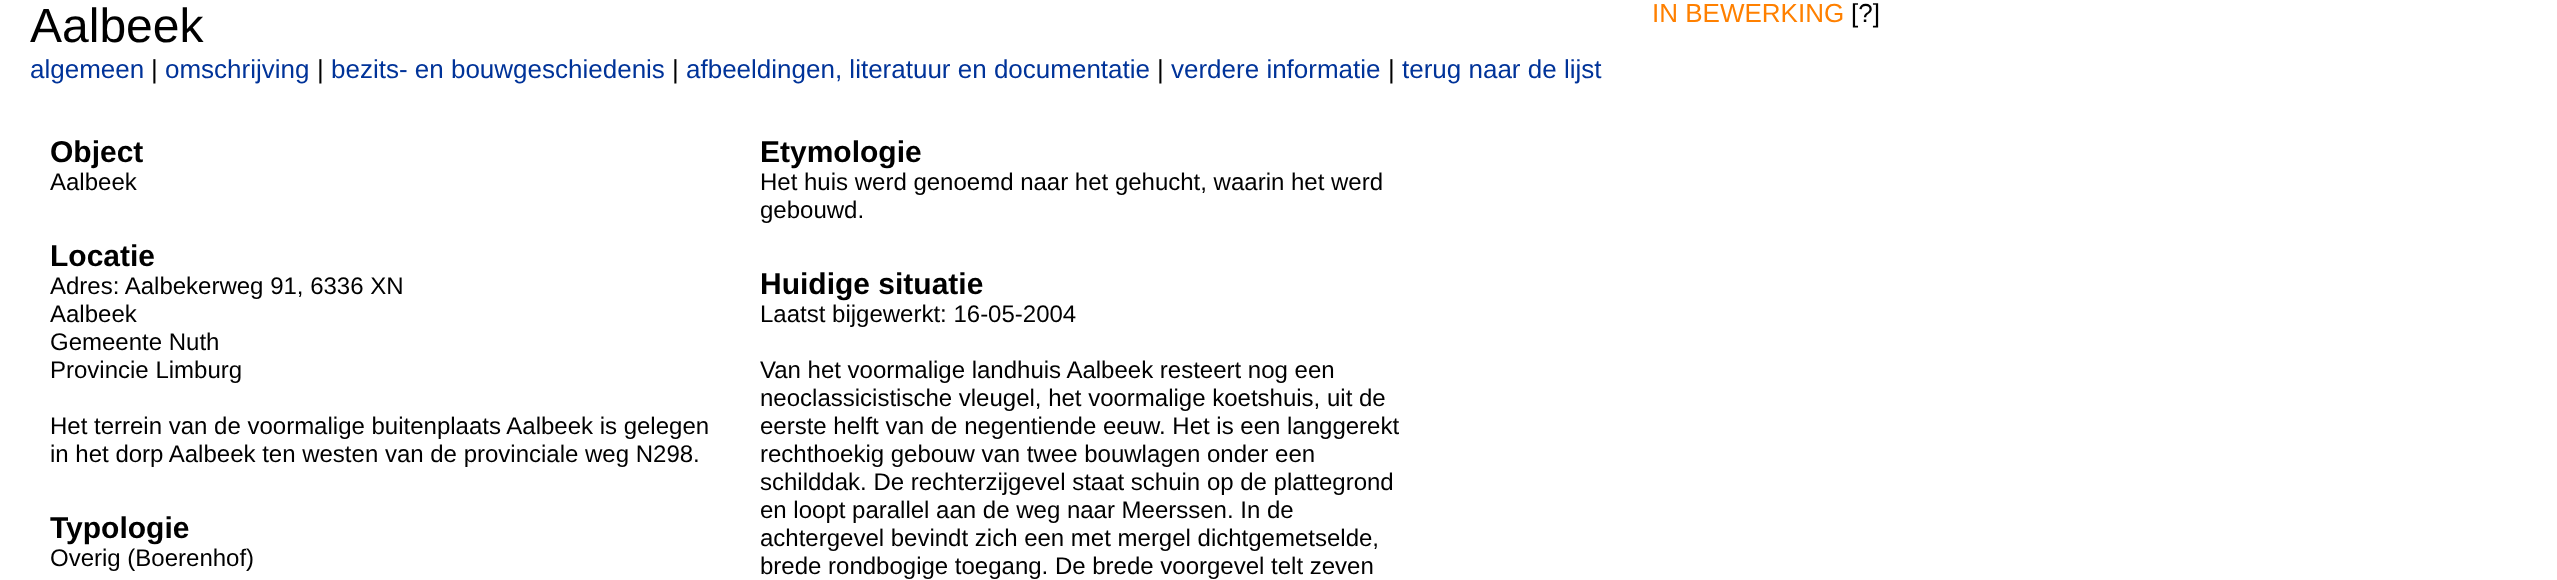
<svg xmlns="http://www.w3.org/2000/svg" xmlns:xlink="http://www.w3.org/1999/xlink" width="2557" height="580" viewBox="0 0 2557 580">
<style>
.cls-1{font:48px Liberation Sans;fill:#000000}
.cls-2{font:26px Liberation Sans;fill:#ff8000}
.cls-3{font:26px Liberation Sans;fill:#000000}
.cls-4{font:26px Liberation Sans;fill:#003399}
.cls-5{font:bold 30px Liberation Sans;fill:#000000}
.cls-6{font:24px Liberation Sans;fill:#000000}
</style>
<rect width="100%" height="100%" fill="#ffffff"/>
<text class="cls-1" x="30" y="42">Aalbeek</text>
<text class="cls-2" x="1652" y="22">IN BEWERKING</text>
<text class="cls-3" x="1851" y="22">[?]</text>
<text class="cls-4" x="30" y="78">algemeen</text>
<text class="cls-3" x="151" y="78">|</text>
<text class="cls-4" x="165" y="78">omschrijving</text>
<text class="cls-3" x="317" y="78">|</text>
<text class="cls-4" x="331" y="78">bezits- en bouwgeschiedenis</text>
<text class="cls-3" x="672" y="78">|</text>
<text class="cls-4" x="686" y="78">afbeeldingen, literatuur en documentatie</text>
<text class="cls-3" x="1157" y="78">|</text>
<text class="cls-4" x="1171" y="78">verdere informatie</text>
<text class="cls-3" x="1388" y="78">|</text>
<text class="cls-4" x="1402" y="78">terug naar de lijst</text>
<text class="cls-5" x="50" y="162">Object</text>
<text class="cls-6" x="50" y="190">Aalbeek</text>
<text class="cls-5" x="50" y="266">Locatie</text>
<text class="cls-6"><tspan x="50" y="294">Adres: Aalbekerweg 91, 6336 XN</tspan><tspan x="50" y="322">Aalbeek</tspan><tspan x="50" y="350">Gemeente Nuth</tspan><tspan x="50" y="378">Provincie Limburg</tspan></text>
<text class="cls-6"><tspan x="50" y="434">Het terrein van de voormalige buitenplaats Aalbeek is gelegen</tspan><tspan x="50" y="462">in het dorp Aalbeek ten westen van de provinciale weg N298.</tspan></text>
<text class="cls-5" x="50" y="538">Typologie</text>
<text class="cls-6" x="50" y="566">Overig (Boerenhof)</text>
<text class="cls-5" x="760" y="162">Etymologie</text>
<text class="cls-6"><tspan x="760" y="190">Het huis werd genoemd naar het gehucht, waarin het werd</tspan><tspan x="760" y="218">gebouwd.</tspan></text>
<text class="cls-5" x="760" y="294">Huidige situatie</text>
<text class="cls-6" x="760" y="322">Laatst bijgewerkt: 16-05-2004</text>
<text class="cls-6"><tspan x="760" y="378">Van het voormalige landhuis Aalbeek resteert nog een</tspan><tspan x="760" y="406">neoclassicistische vleugel, het voormalige koetshuis, uit de</tspan><tspan x="760" y="434">eerste helft van de negentiende eeuw. Het is een langgerekt</tspan><tspan x="760" y="462">rechthoekig gebouw van twee bouwlagen onder een</tspan><tspan x="760" y="490">schilddak. De rechterzijgevel staat schuin op de plattegrond</tspan><tspan x="760" y="518">en loopt parallel aan de weg naar Meerssen. In de</tspan><tspan x="760" y="546">achtergevel bevindt zich een met mergel dichtgemetselde,</tspan><tspan x="760" y="574">brede rondbogige toegang. De brede voorgevel telt zeven</tspan></text>
</svg>
